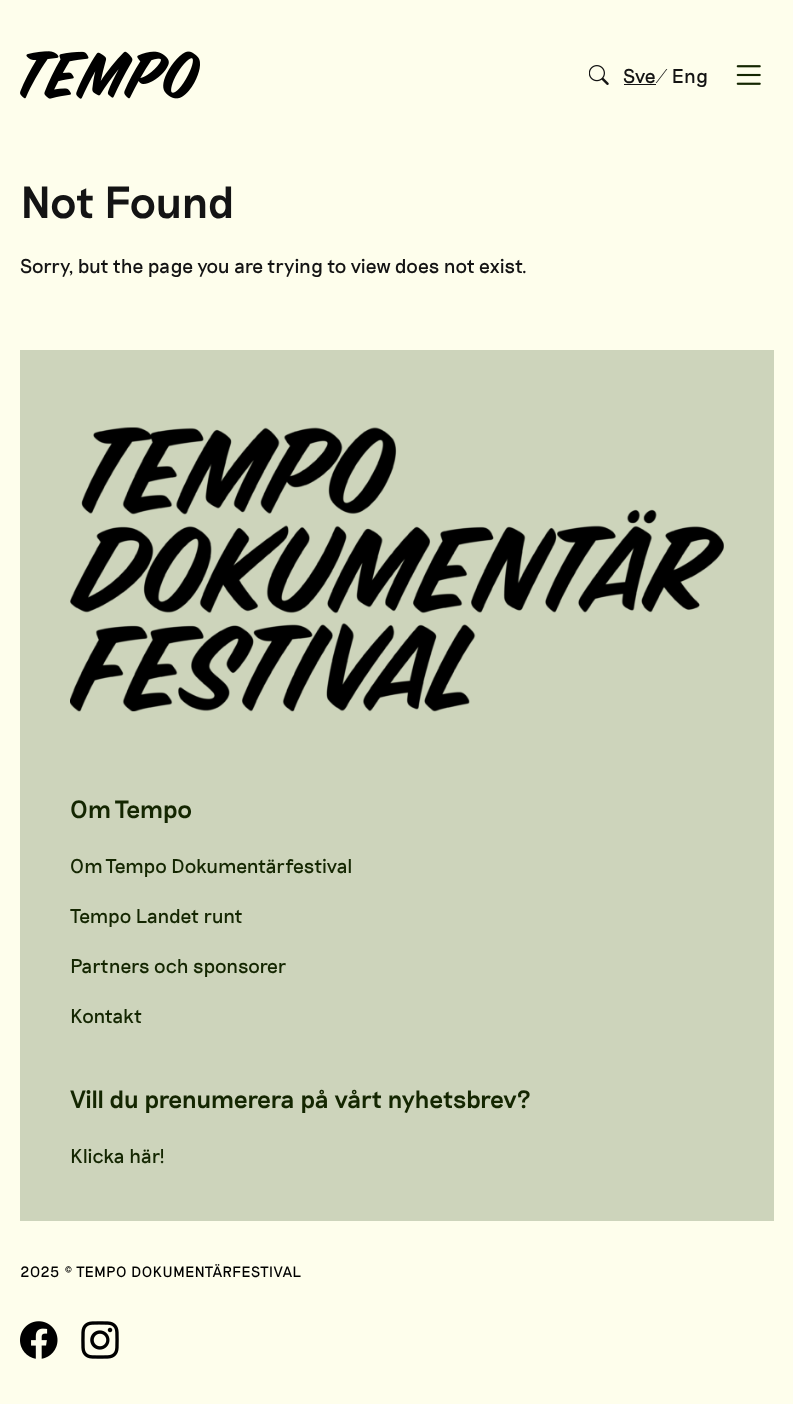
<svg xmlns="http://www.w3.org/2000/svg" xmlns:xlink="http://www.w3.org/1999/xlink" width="793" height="1404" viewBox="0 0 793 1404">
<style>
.cls-1{font:20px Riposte;fill:#141414}
.cls-2{font:500 45px Riposte;fill:#141414}
.cls-3{font:500 25px Riposte;fill:#142601}
.cls-4{font:20px Riposte;fill:#142601}
.cls-5{font:15px Riposte;letter-spacing:0.75px;fill:#000000}
</style>
<rect width="100%" height="100%" fill="#fefeec"/>
<image xlink:href="image0.png" x="20" y="51" width="180" height="48"/>
<image xlink:href="image1.png" x="589" y="65" width="20" height="20"/>
<rect fill="#141414" x="624" y="84" width="32" height="1"/>
<image xlink:href="image2.png" x="736" y="65" width="25" height="20"/>
<rect fill="#cdd4bb" x="20" y="350" width="754" height="871"/>
<image xlink:href="image3.png" x="70" y="427" width="654" height="285"/>
<image xlink:href="image4.png" x="20" y="1321" width="38" height="38"/>
<image xlink:href="image5.png" x="81" y="1321" width="38" height="38"/>
<text class="cls-1" x="623" y="83">Sve/ Eng</text>
<text class="cls-2" x="20" y="218">Not Found</text>
<text class="cls-1" x="20" y="273">Sorry, but the page you are trying to view does not exist.</text>
<text class="cls-3" x="70" y="818">Om Tempo</text>
<text class="cls-4" x="70" y="873">Om Tempo Dokumentärfestival</text>
<text class="cls-4" x="70" y="923">Tempo Landet runt</text>
<text class="cls-4" x="70" y="973">Partners och sponsorer</text>
<text class="cls-4" x="70" y="1023">Kontakt</text>
<text class="cls-3" x="70" y="1108">Vill du prenumerera på vårt nyhetsbrev?</text>
<text class="cls-4" x="70" y="1163">Klicka här!</text>
<text class="cls-5" x="20" y="1277">2025 © TEMPO DOKUMENTÄRFESTIVAL</text>
</svg>
